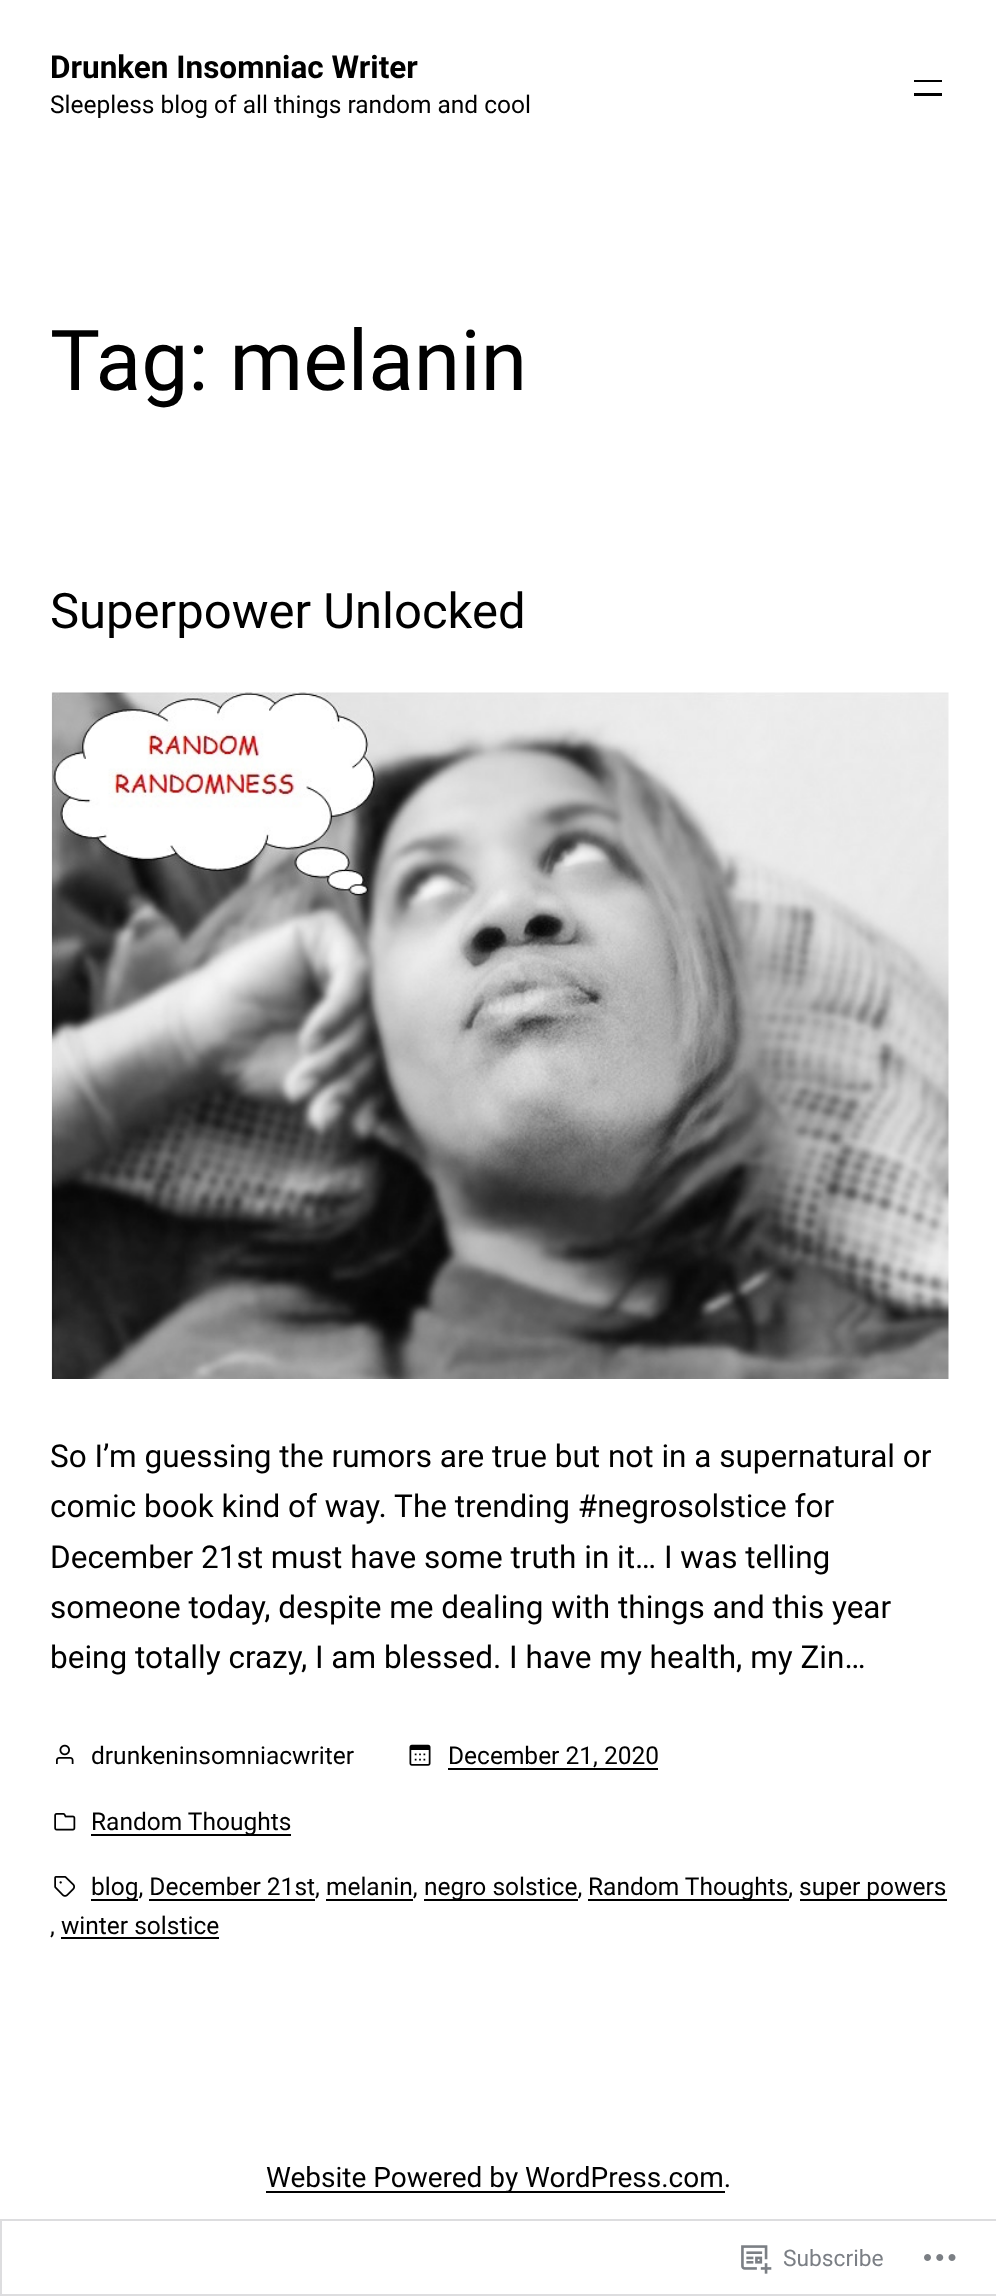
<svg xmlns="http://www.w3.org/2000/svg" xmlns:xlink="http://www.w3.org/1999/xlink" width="996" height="2296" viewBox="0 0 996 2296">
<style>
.cls-1{font:bold 31.5px Roboto;fill:#000000}
.cls-2{font:24.5px Roboto;fill:#000000}
.cls-3{font:84px Roboto;fill:#000000}
.cls-4{font:49px Roboto;fill:#000000}
.cls-5{font:31.5px Roboto;fill:#000000}
.cls-6{font:28px Roboto;fill:#000000}
.cls-7{font:22.75px Roboto;fill:#7b7f85}
</style>
<rect width="100%" height="100%" fill="#ffffff"/>
<rect fill="#000000" x="914" y="80" width="28" height="2"/>
<rect fill="#000000" x="914" y="93" width="28" height="3"/>
<image xlink:href="image0.png" x="51" y="692" width="898" height="687"/>
<image xlink:href="image1.png" x="56" y="1744" width="18" height="20"/>
<image xlink:href="image2.png" x="409" y="1744" width="22" height="22"/>
<rect fill="#000000" x="448" y="1768" width="210" height="2"/>
<image xlink:href="image3.png" x="54" y="1813" width="22" height="18"/>
<rect fill="#000000" x="91" y="1834" width="200" height="2"/>
<image xlink:href="image4.png" x="54" y="1876" width="21" height="21"/>
<rect fill="#000000" x="91" y="1899" width="47" height="2"/>
<rect fill="#000000" x="424" y="1899" width="154" height="2"/>
<rect fill="#000000" x="588" y="1899" width="201" height="2"/>
<rect fill="#000000" x="800" y="1899" width="147" height="2"/>
<rect fill="#000000" x="149" y="1899" width="166" height="2"/>
<rect fill="#000000" x="326" y="1899" width="87" height="2"/>
<rect fill="#000000" x="61" y="1937" width="158" height="2"/>
<rect fill="#000000" x="266" y="2191" width="459" height="2"/>
<rect fill="none" stroke="#dddddf" stroke-width="2" x="1" y="2220" width="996" height="75"/>
<image xlink:href="image5.png" x="741" y="2245" width="31" height="29"/>
<image xlink:href="image6.png" x="924" y="2254" width="32" height="7"/>
<text class="cls-1" x="50" y="78">Drunken Insomniac Writer</text>
<text class="cls-2" x="50" y="113">Sleepless blog of all things random and cool</text>
<text class="cls-3" x="50" y="390">Tag: melanin</text>
<text class="cls-4" x="50" y="628">Superpower Unlocked</text>
<text class="cls-5"><tspan x="50" y="1467">So I’m guessing the rumors are true but not in a supernatural or</tspan><tspan x="50" y="1517">comic book kind of way. The trending #negrosolstice for</tspan><tspan x="50" y="1568">December 21st must have some truth in it… I was telling</tspan><tspan x="50" y="1618">someone today, despite me dealing with things and this year</tspan><tspan x="50" y="1668">being totally crazy, I am blessed. I have my health, my Zin…</tspan></text>
<text class="cls-2" x="91" y="1764">drunkeninsomniacwriter</text>
<text class="cls-2" x="448" y="1764">December 21, 2020</text>
<text class="cls-2" x="91" y="1830">Random Thoughts</text>
<text class="cls-2" x="91" y="1895">blog, December 21st, melanin,</text>
<text class="cls-2" x="424" y="1895">negro solstice,</text>
<text class="cls-2" x="588" y="1895">Random Thoughts,</text>
<text class="cls-2" x="799" y="1895">super powers</text>
<text class="cls-2" x="50" y="1934">, winter solstice</text>
<text class="cls-6" x="266" y="2187">Website Powered by WordPress.com.</text>
<text class="cls-7" x="783" y="2266">Subscribe</text>
</svg>
